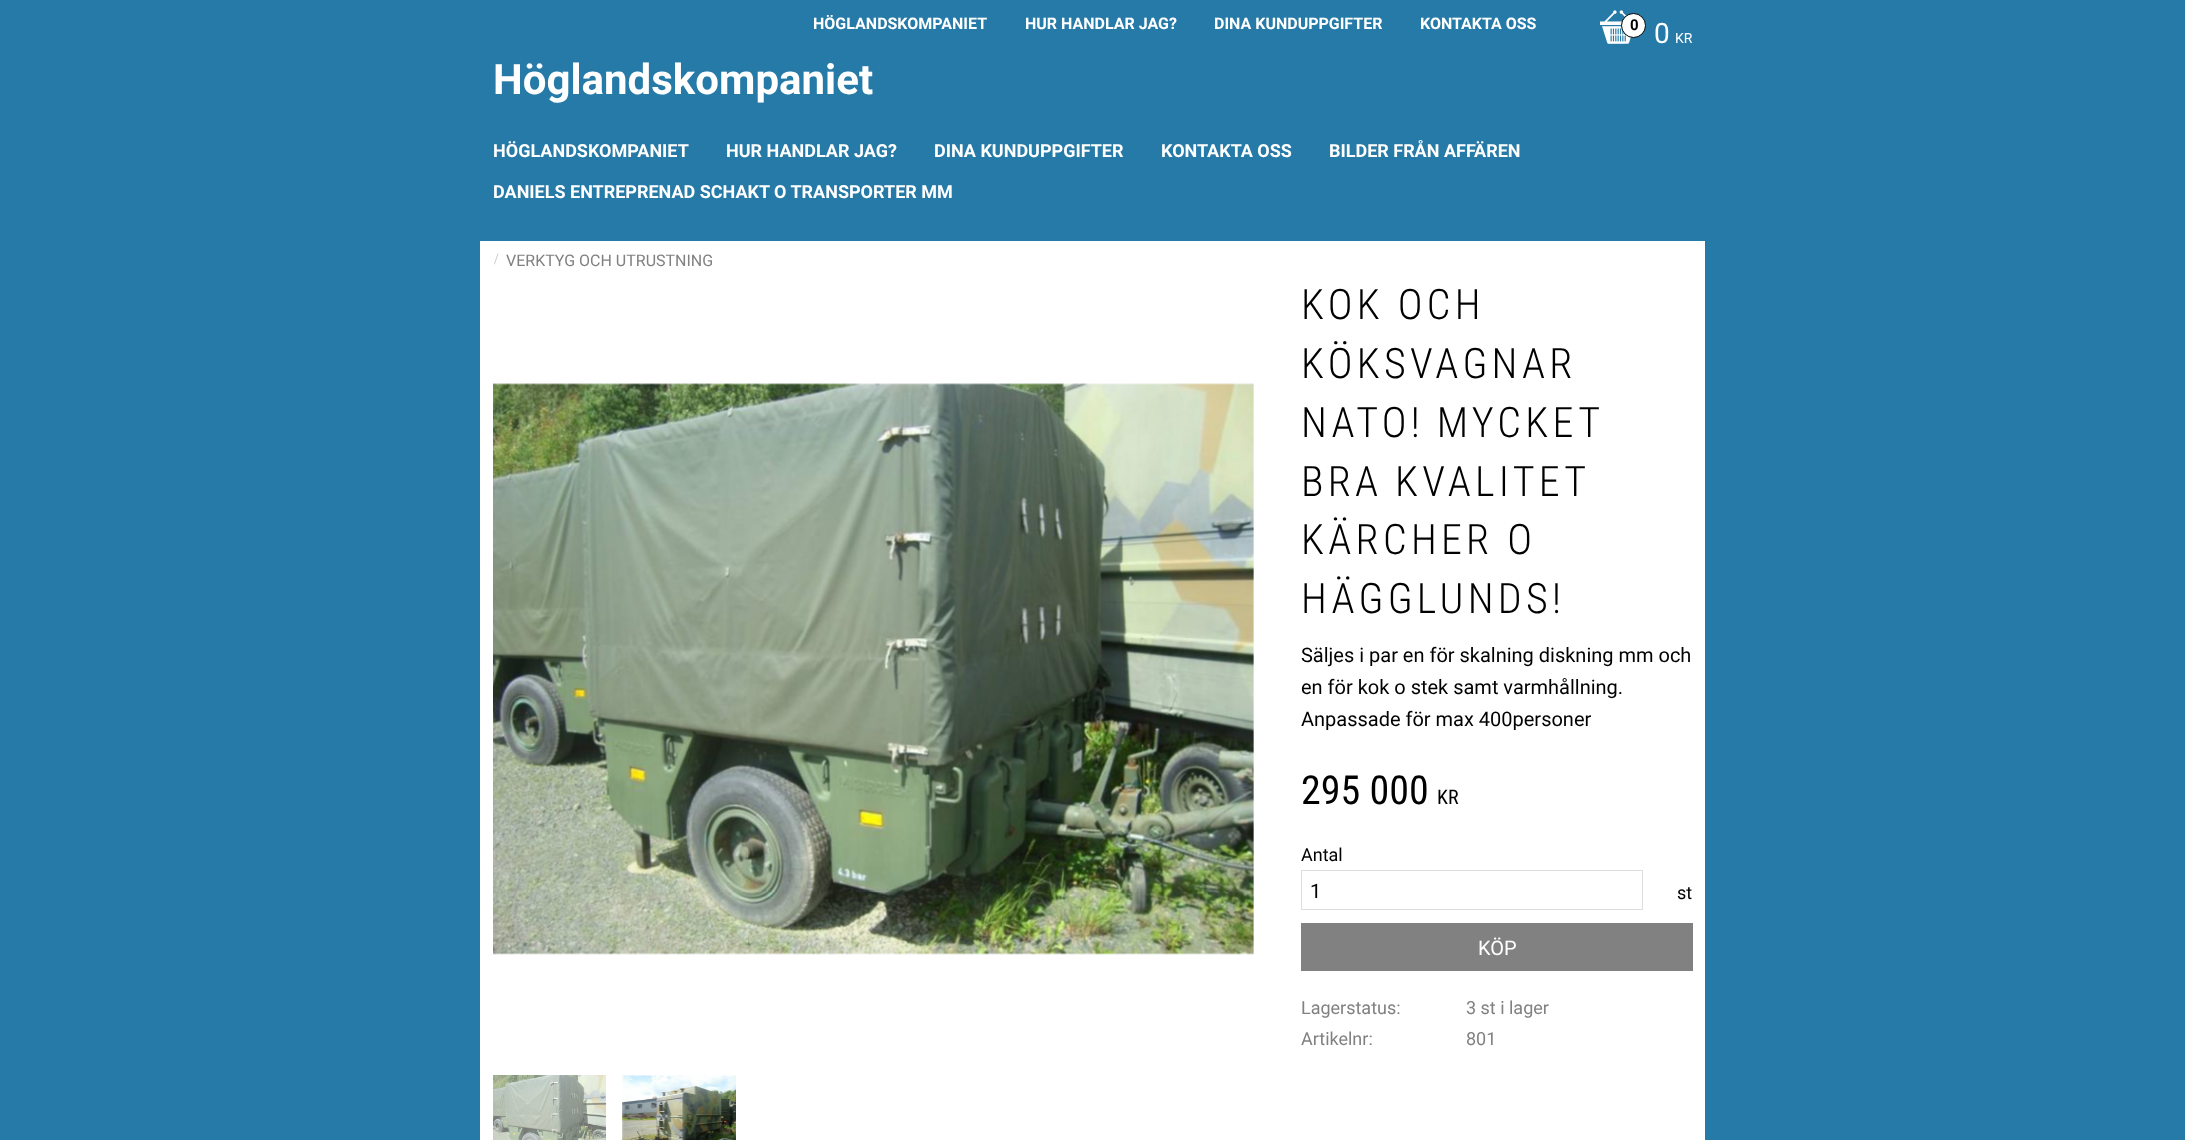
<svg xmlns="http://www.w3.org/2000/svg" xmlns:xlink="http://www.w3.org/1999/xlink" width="2185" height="1140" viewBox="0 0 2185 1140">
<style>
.cls-1{font:bold 16px Roboto;fill:#ffffff}
.cls-2{font:bold 15px Roboto;fill:#000000}
.cls-3{font:28px Roboto;fill:#ffffff}
.cls-4{font:14px Roboto;fill:#ffffff}
.cls-5{font:bold 42px Roboto;fill:#ffffff}
.cls-6{font:bold 18px Roboto;fill:#ffffff}
.cls-7{font:16px Liberation Serif;fill:#c3c3c3}
.cls-8{font:16px Roboto;fill:#818181}
.cls-9{font:300 42px Roboto Condensed;letter-spacing:4.25px;fill:#000000}
.cls-10{font:20px Roboto;fill:#000000}
.cls-11{font:40px Roboto Condensed;fill:#000000}
.cls-12{font:20px Roboto Condensed;fill:#000000}
.cls-13{font:18px Roboto;fill:#000000}
.cls-14{font:20px Roboto;fill:#ffffff}
.cls-15{font:18px Roboto;fill:#818181}
</style>
<rect width="100%" height="100%" fill="#257aa7"/>
<image xlink:href="image0.png" x="1600" y="10" width="31" height="34"/>
<circle fill="#ffffff" stroke="#000000" cx="1633.5" cy="25.5" r="12"/>
<rect fill="#ffffff" x="480" y="241" width="1225" height="899"/>
<image xlink:href="image1.png" x="493" y="383" width="761" height="572"/>
<image xlink:href="image2.png" x="493" y="1075" width="113" height="65"/>
<image xlink:href="image3.png" x="622" y="1075" width="114" height="65"/>
<rect fill="none" stroke="#dedede" x="1301.5" y="870.5" width="341" height="39"/>
<rect fill="#818181" x="1301" y="923" width="392" height="48"/>
<text class="cls-1" x="813" y="29">HÖGLANDSKOMPANIET</text>
<text class="cls-1" x="1025" y="29">HUR HANDLAR JAG?</text>
<text class="cls-1" x="1214" y="29">DINA KUNDUPPGIFTER</text>
<text class="cls-1" x="1420" y="29">KONTAKTA OSS</text>
<text class="cls-2" x="1630" y="30">0</text>
<text class="cls-3" x="1654" y="43">0</text>
<text class="cls-4" x="1675" y="43">KR</text>
<text class="cls-5" x="493" y="94">Höglandskompaniet</text>
<text class="cls-6" x="493" y="157">HÖGLANDSKOMPANIET</text>
<text class="cls-6" x="726" y="157">HUR HANDLAR JAG?</text>
<text class="cls-6" x="934" y="157">DINA KUNDUPPGIFTER</text>
<text class="cls-6" x="1161" y="157">KONTAKTA OSS</text>
<text class="cls-6" x="1329" y="157">BILDER FRÅN AFFÄREN</text>
<text class="cls-6" x="493" y="198">DANIELS ENTREPRENAD SCHAKT O TRANSPORTER MM</text>
<text class="cls-7" x="494" y="264">/</text>
<text class="cls-8" x="506" y="266">VERKTYG OCH UTRUSTNING</text>
<text class="cls-9"><tspan x="1301" y="319">KOK OCH</tspan><tspan x="1301" y="378">KÖKSVAGNAR</tspan><tspan x="1301" y="437" word-spacing="-1">NATO! MYCKET</tspan><tspan x="1301" y="496" word-spacing="-1">BRA KVALITET</tspan><tspan x="1301" y="554">KÄRCHER O</tspan><tspan x="1301" y="613">HÄGGLUNDS!</tspan></text>
<text class="cls-10"><tspan x="1301" y="662">Säljes i par en för skalning diskning mm och</tspan><tspan x="1301" y="694">en för kok o stek samt varmhållning.</tspan><tspan x="1301" y="726">Anpassade för max 400personer</tspan></text>
<text class="cls-11" x="1301" y="804">295 000</text>
<text class="cls-12" x="1437" y="804">KR</text>
<text class="cls-13" x="1301" y="861">Antal</text>
<text class="cls-10" x="1310" y="898">1</text>
<text class="cls-13" x="1677" y="899">st</text>
<text class="cls-14" x="1478" y="955">KÖP</text>
<text class="cls-15" x="1301" y="1014">Lagerstatus:</text>
<text class="cls-15" x="1466" y="1014">3 st i lager</text>
<text class="cls-15" x="1301" y="1045">Artikelnr:</text>
<text class="cls-15" x="1466" y="1045">801</text>
</svg>
